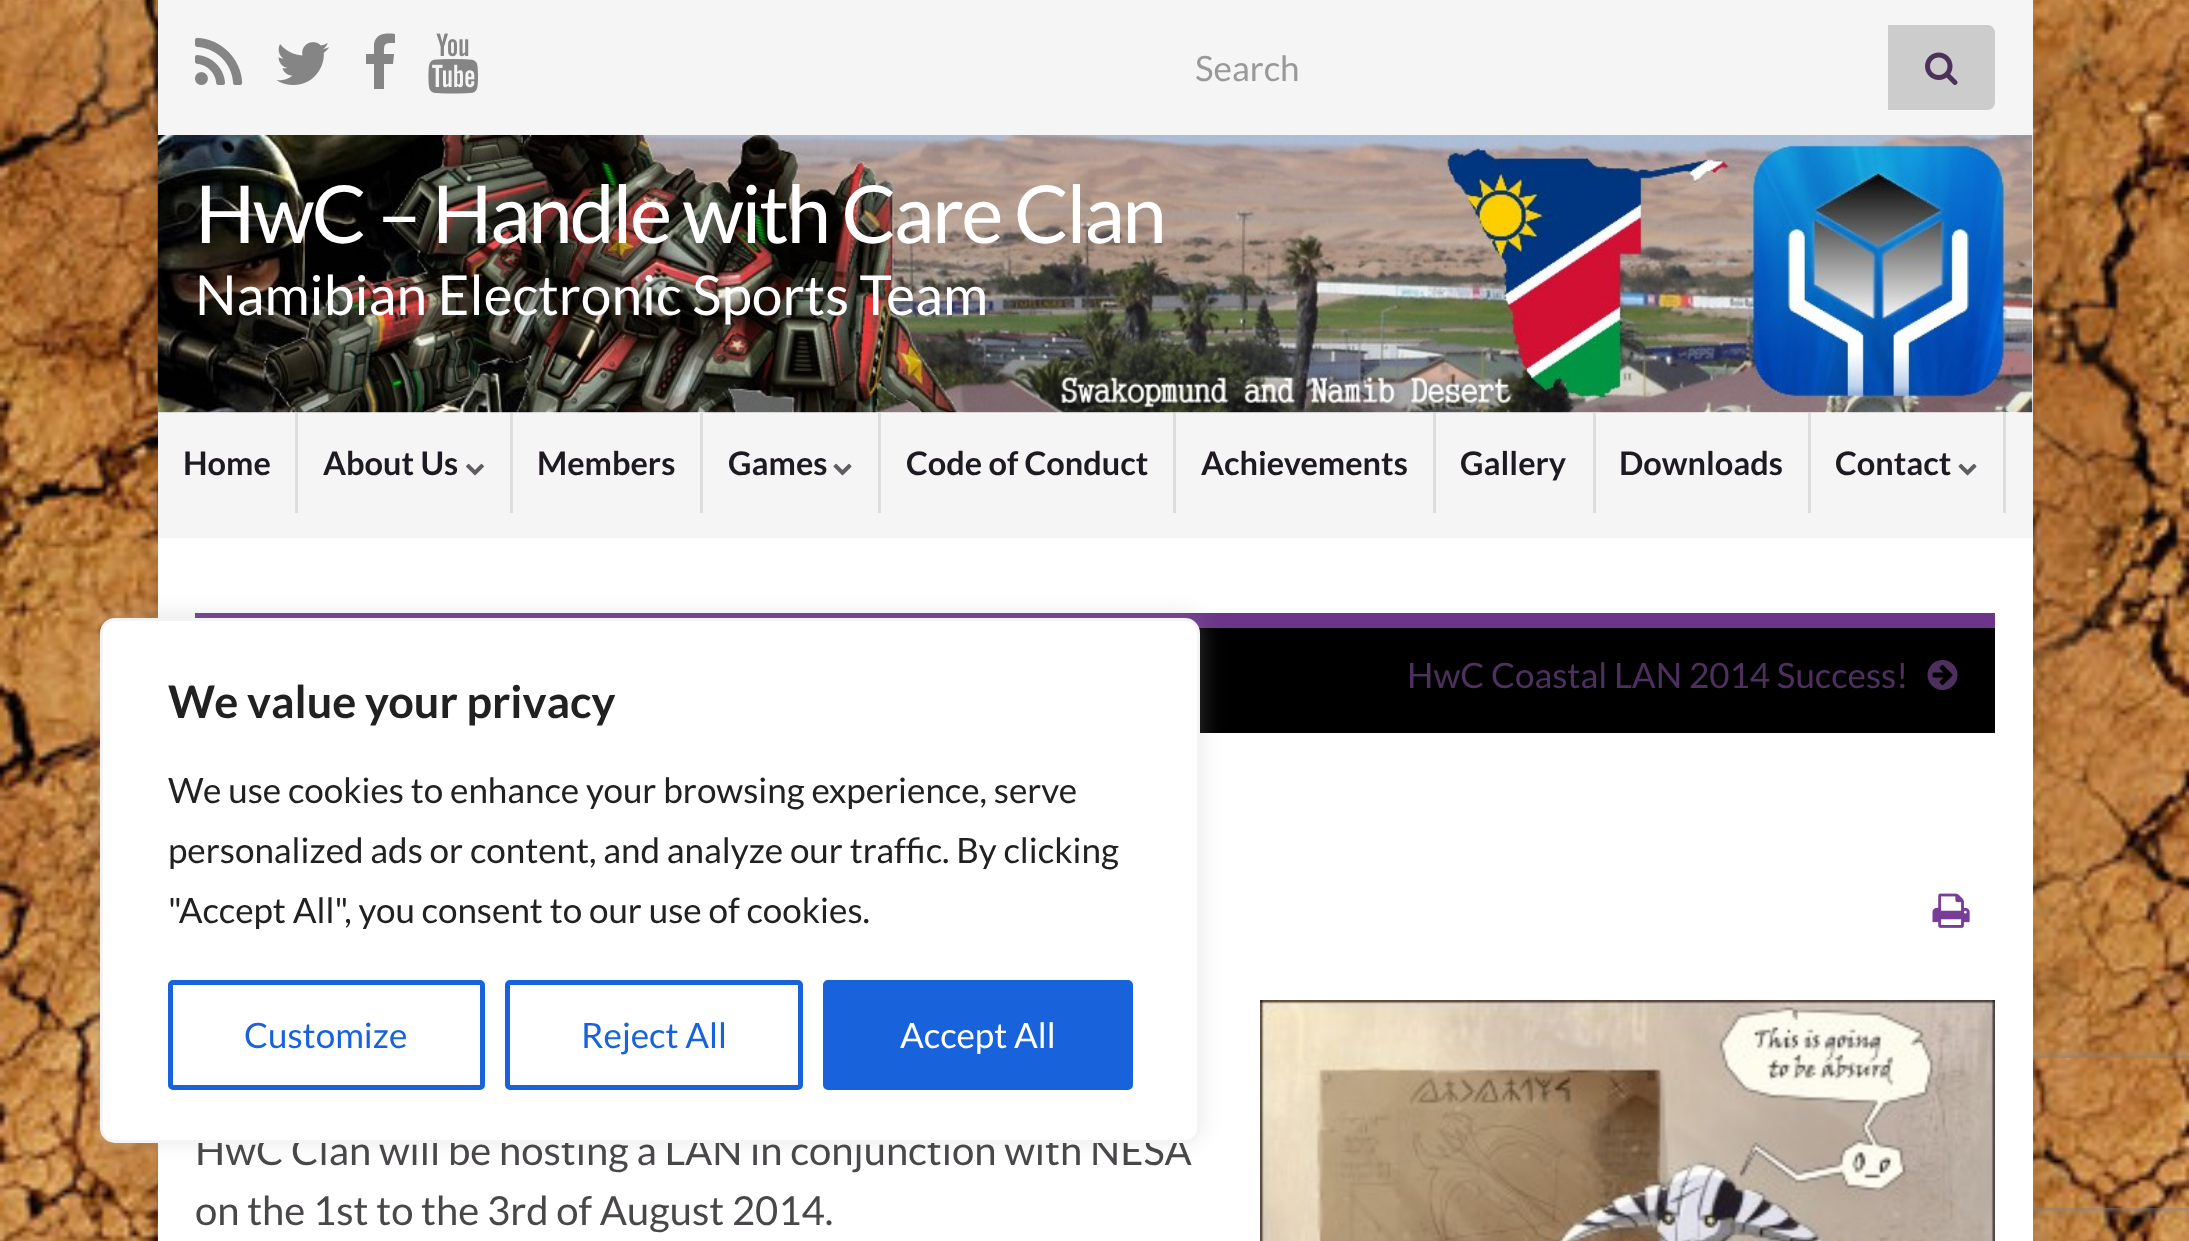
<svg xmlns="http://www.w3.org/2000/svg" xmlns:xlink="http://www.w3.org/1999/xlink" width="2189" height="1241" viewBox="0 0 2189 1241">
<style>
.cls-1{font:35px Lato;fill:#999999}
.cls-2{font:80px Lato;letter-spacing:-2.5px;fill:#ffffff}
.cls-3{font:55px Lato;fill:#ffffff}
.cls-4{font:bold 32.5px Lato;fill:#1f1a22}
.cls-5{font:35px Lato;fill:#4e305e}
.cls-6{font:40px Lato;fill:#4a474b}
.cls-7{font:bold 45px Lato;fill:#212121}
.cls-8{font:35px Lato;fill:#212121}
.cls-9{font:35px Lato;fill:#1863dc}
.cls-10{font:35px Lato;fill:#ffffff}
</style>
<defs>
<clipPath id="clip1"><path d="M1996 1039H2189V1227H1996ZM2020 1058H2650C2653 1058 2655 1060 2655 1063V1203C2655 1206 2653 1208 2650 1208H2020C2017 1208 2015 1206 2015 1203V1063C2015 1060 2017 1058 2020 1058Z" clip-rule="evenodd"/></clipPath>
</defs>
<rect width="100%" height="100%" fill="#ffffff"/>
<image xlink:href="image0.png" x="0" y="0" width="2189" height="1241"/>
<rect fill="#000000" fill-opacity="0.1" filter="blur(12.5px)" x="158" y="0" width="1875" height="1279"/>
<rect fill="#f5f5f5" x="158" y="0" width="1875" height="135"/>
<image xlink:href="image1.png" x="195" y="37" width="48" height="48"/>
<image xlink:href="image2.png" x="276" y="42" width="53" height="43"/>
<path fill="#858585" d="M395 34V43C384 43 384 43 384 54H394L393 64H384V89H374V64H366V54H374V44C376 33 386 33 395 34Z"/>
<image xlink:href="image3.png" x="428" y="33" width="50" height="61"/>
<path fill="#cccccc" d="M1888 25H1987C1991.5 25 1995 28.5 1995 33V102C1995 106.5 1991.5 110 1987 110H1888Z"/>
<image xlink:href="image4.png" x="1925" y="52" width="33" height="33"/>
<rect fill="#ffffff" x="158" y="135" width="1875" height="278"/>
<image xlink:href="image5.png" x="157" y="135" width="1876" height="278"/>
<rect fill="#f5f5f5" x="158" y="413" width="1875" height="125"/>
<rect fill="#dddddd" x="295" y="413" width="3" height="100"/>
<rect fill="#dddddd" x="510" y="413" width="3" height="100"/>
<image xlink:href="image6.png" x="466" y="463" width="18" height="13"/>
<rect fill="#dddddd" x="700" y="413" width="3" height="100"/>
<rect fill="#dddddd" x="878" y="413" width="3" height="100"/>
<image xlink:href="image7.png" x="833" y="463" width="19" height="13"/>
<rect fill="#dddddd" x="1173" y="413" width="3" height="100"/>
<rect fill="#dddddd" x="1433" y="413" width="3" height="100"/>
<rect fill="#dddddd" x="1593" y="413" width="3" height="100"/>
<rect fill="#dddddd" x="1808" y="413" width="3" height="100"/>
<rect fill="#dddddd" x="2003" y="413" width="3" height="100"/>
<image xlink:href="image7.png" x="1958" y="463" width="19" height="13"/>
<g clip-path="url(#clip1)">
<rect fill="#808080" filter="blur(6px)" x="2015" y="1058" width="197" height="150" rx="5"/>
</g>
<rect fill="#ffffff" x="158" y="538" width="1875" height="703"/>
<rect fill="#000000" x="1199" y="628" width="796" height="105"/>
<rect fill="#6b3589" x="195" y="613" width="1800" height="15"/>
<image xlink:href="image8.png" x="1927" y="660" width="31" height="30"/>
<image xlink:href="image9.png" x="1932" y="893" width="38" height="35"/>
<image xlink:href="image10.png" x="1260" y="1000" width="735" height="241"/>
<rect fill="#acabab" fill-opacity="0.3" filter="blur(12.5px)" x="100" y="615" width="1100" height="525" rx="15"/>
<text class="cls-1" x="1195" y="81">Search</text>
<text class="cls-2" x="195" y="243">HwC – Handle with Care Clan</text>
<text class="cls-3" x="195" y="315">Namibian Electronic Sports Team</text>
<text class="cls-4" x="183" y="475">Home</text>
<text class="cls-4" x="323" y="475">About Us</text>
<text class="cls-4" x="537" y="475">Members</text>
<text class="cls-4" x="728" y="475">Games</text>
<text class="cls-4" x="906" y="475">Code of Conduct</text>
<text class="cls-4" x="1201" y="475">Achievements</text>
<text class="cls-4" x="1460" y="475">Gallery</text>
<text class="cls-4" x="1619" y="475">Downloads</text>
<text class="cls-4" x="1835" y="475">Contact</text>
<text class="cls-5" x="1407" y="688">HwC Coastal LAN 2014 Success!</text>
<text class="cls-6"><tspan x="195" y="1165">HwC Clan will be hosting a LAN in conjunction with NESA</tspan><tspan x="195" y="1225">on the 1st to the 3rd of August 2014.</tspan></text>
<rect fill="#ffffff" stroke="#f4f4f4" stroke-width="3" x="101.5" y="619.5" width="1097" height="522" rx="13.5"/>
<text class="cls-7" x="168" y="718">We value your privacy</text>
<text class="cls-8"><tspan x="168" y="803">We use cookies to enhance your browsing experience, serve</tspan><tspan x="168" y="863">personalized ads or content, and analyze our traffic. By clicking</tspan><tspan x="168" y="923">"Accept All", you consent to our use of cookies.</tspan></text>
<rect fill="none" stroke="#1863dc" stroke-width="5" x="170.5" y="982.5" width="312" height="105" rx="2.5"/>
<text class="cls-9" x="244" y="1048">Customize</text>
<rect fill="none" stroke="#1863dc" stroke-width="5" x="507.5" y="982.5" width="293" height="105" rx="2.5"/>
<text class="cls-9" x="581" y="1048">Reject All</text>
<rect fill="#1863dc" stroke="#1863dc" stroke-width="5" x="825.5" y="982.5" width="305" height="105" rx="2.5"/>
<text class="cls-10" x="900" y="1048">Accept All</text>
</svg>
